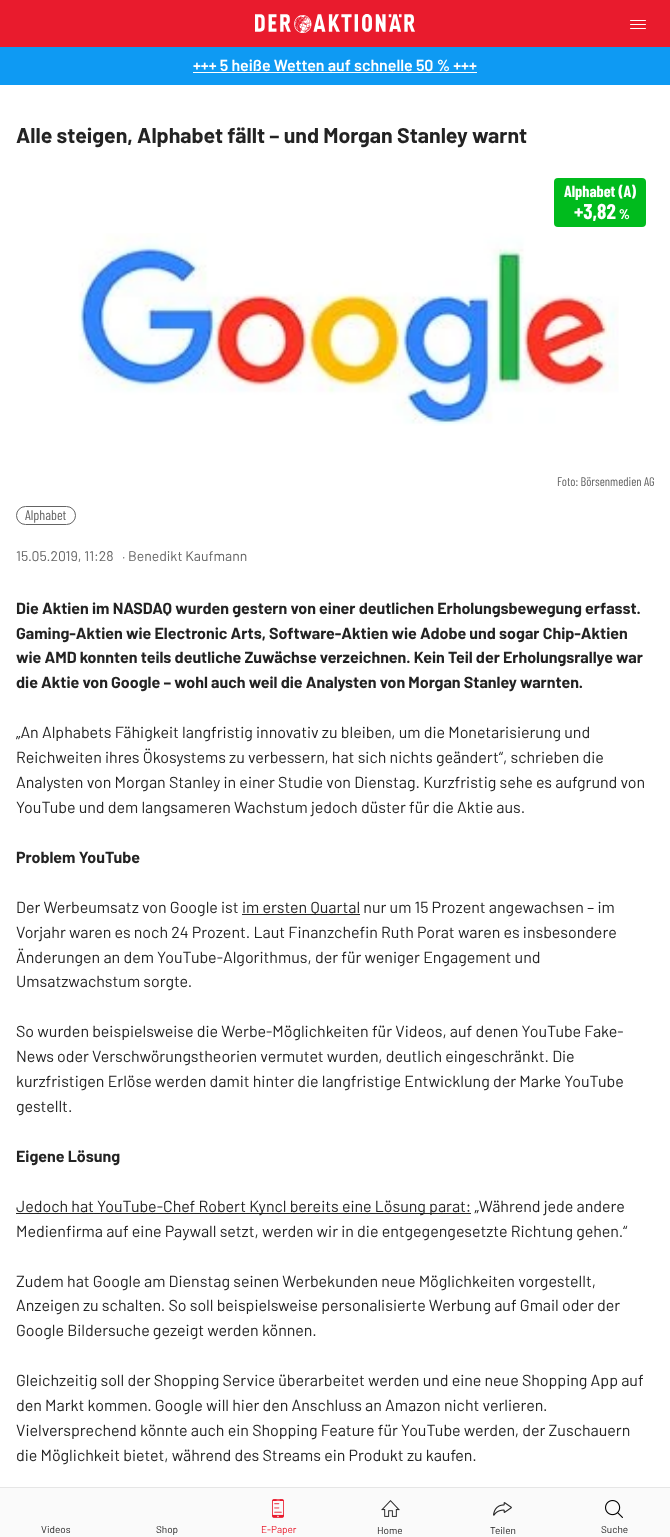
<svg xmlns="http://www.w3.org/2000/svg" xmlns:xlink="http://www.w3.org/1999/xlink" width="670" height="1537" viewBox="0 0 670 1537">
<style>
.cls-1{font:600 16px Barlow;fill:#ffffff}
.cls-2{font:bold 21.3px Barlow;fill:#232323}
.cls-3{font:bold 16px Barlow Condensed;fill:#ffffff}
.cls-4{font:bold 21.3px Barlow Condensed;fill:#ffffff}
.cls-5{font:bold 14px Barlow Condensed;fill:#ffffff}
.cls-6{font:12.5px Barlow Condensed;fill:#646464}
.cls-7{font:14px Barlow Condensed;fill:#646464}
.cls-8{font:14px Barlow;fill:#646464}
.cls-9{font:300 14px Noto Sans;fill:#646464}
.cls-10{font:bold 16px Barlow;fill:#232323}
.cls-11{font:16px Barlow;fill:#232323}
.cls-12{font:10px Barlow;fill:#232323}
.cls-13{font:10px Barlow;fill:#e91b2d}
</style>
<rect width="100%" height="100%" fill="#ffffff"/>
<rect fill="#0e9af3" x="0" y="47" width="670" height="38"/>
<rect fill="#ffffff" x="193" y="72" width="284" height="1"/>
<rect fill="#00bb1d" x="554" y="178" width="92" height="49" rx="4"/>
<image xlink:href="image0.png" x="78" y="233" width="541" height="193"/>
<rect fill="none" stroke="#646464" x="16.5" y="506.5" width="59" height="18" rx="9"/>
<rect fill="#232323" x="242" y="914" width="118" height="1"/>
<rect fill="#232323" x="16" y="1213" width="455" height="1"/>
<rect fill="#e91b2d" x="0" y="0" width="670" height="47"/>
<image xlink:href="image1.png" x="255" y="14" width="160" height="19"/>
<rect fill="#fafafa" x="0" y="1488" width="670" height="49"/>
<rect fill="#e6e6e6" x="0" y="1487" width="670" height="1"/>
<rect fill="#ffffff" x="630" y="24" width="16" height="1" rx="0.5"/>
<rect fill="#ffffff" x="630" y="20" width="16" height="1" rx="0.5"/>
<rect fill="#ffffff" x="630" y="28" width="16" height="1" rx="0.5"/>
<image xlink:href="image2.png" x="272" y="1499" width="12" height="19"/>
<image xlink:href="image3.png" x="381" y="1500" width="19" height="17"/>
<image xlink:href="image4.png" x="493" y="1502" width="19" height="14"/>
<image xlink:href="image5.png" x="605" y="1500" width="18" height="18"/>
<text class="cls-1" x="193" y="71">+++ 5 heiße Wetten auf schnelle 50 % +++</text>
<text class="cls-2" x="16" y="143">Alle steigen, Alphabet fällt – und Morgan Stanley warnt</text>
<text class="cls-3" x="564" y="197">Alphabet (A)</text>
<text class="cls-4" x="574" y="219">+3,82</text>
<text class="cls-5" x="619" y="219">%</text>
<text class="cls-6" x="557" y="486">Foto: Börsenmedien AG</text>
<text class="cls-7" x="25" y="520">Alphabet</text>
<text class="cls-8" x="16" y="561">15.05.2019, 11:28</text>
<text class="cls-9" x="122" y="561">‧</text>
<text class="cls-8" x="128" y="561">Benedikt Kaufmann</text>
<text class="cls-10"><tspan x="16" y="614">Die Aktien im NASDAQ wurden gestern von einer deutlichen Erholungsbewegung erfasst.</tspan><tspan x="16" y="639">Gaming-Aktien wie Electronic Arts, Software-Aktien wie Adobe und sogar Chip-Aktien</tspan><tspan x="16" y="663">wie AMD konnten teils deutliche Zuwächse verzeichnen. Kein Teil der Erholungsrallye war</tspan><tspan x="16" y="688">die Aktie von Google – wohl auch weil die Analysten von Morgan Stanley warnten.</tspan></text>
<text class="cls-11"><tspan x="16" y="738">„An Alphabets Fähigkeit langfristig innovativ zu bleiben, um die Monetarisierung und</tspan><tspan x="16" y="763">Reichweiten ihres Ökosystems zu verbessern, hat sich nichts geändert“, schrieben die</tspan><tspan x="16" y="788">Analysten von Morgan Stanley in einer Studie von Dienstag. Kurzfristig sehe es aufgrund von</tspan><tspan x="16" y="813">YouTube und dem langsameren Wachstum jedoch düster für die Aktie aus.</tspan></text>
<text class="cls-10" x="16" y="863">Problem YouTube</text>
<text class="cls-11" x="16" y="913">Der Werbeumsatz von Google ist</text>
<text class="cls-11" x="242" y="913">im ersten Quartal nur um 15 Prozent angewachsen – im</text>
<text class="cls-11"><tspan x="16" y="938">Vorjahr waren es noch 24 Prozent. Laut Finanzchefin Ruth Porat waren es insbesondere</tspan><tspan x="16" y="963">Änderungen an dem YouTube-Algorithmus, der für weniger Engagement und</tspan><tspan x="16" y="987">Umsatzwachstum sorgte.</tspan></text>
<text class="cls-11"><tspan x="16" y="1037">So wurden beispielsweise die Werbe-Möglichkeiten für Videos, auf denen YouTube Fake-</tspan><tspan x="16" y="1062">News oder Verschwörungstheorien vermutet wurden, deutlich eingeschränkt. Die</tspan><tspan x="16" y="1087">kurzfristigen Erlöse werden damit hinter die langfristige Entwicklung der Marke YouTube</tspan><tspan x="16" y="1112">gestellt.</tspan></text>
<text class="cls-10" x="16" y="1162">Eigene Lösung</text>
<text class="cls-11"><tspan x="16" y="1212">Jedoch hat YouTube-Chef Robert Kyncl bereits eine Lösung parat: „Während jede andere</tspan><tspan x="16" y="1237">Medienfirma auf eine Paywall setzt, werden wir in die entgegengesetzte Richtung gehen.“</tspan></text>
<text class="cls-11"><tspan x="16" y="1287">Zudem hat Google am Dienstag seinen Werbekunden neue Möglichkeiten vorgestellt,</tspan><tspan x="16" y="1311">Anzeigen zu schalten. So soll beispielsweise personalisierte Werbung auf Gmail oder der</tspan><tspan x="16" y="1336">Google Bildersuche gezeigt werden können.</tspan></text>
<text class="cls-11"><tspan x="16" y="1386">Gleichzeitig soll der Shopping Service überarbeitet werden und eine neue Shopping App auf</tspan><tspan x="16" y="1411">den Markt kommen. Google will hier den Anschluss an Amazon nicht verlieren.</tspan><tspan x="16" y="1436">Vielversprechend könnte auch ein Shopping Feature für YouTube werden, der Zuschauern</tspan><tspan x="16" y="1461">die Möglichkeit bietet, während des Streams ein Produkt zu kaufen.</tspan></text>
<text class="cls-12" x="41" y="1533">Videos</text>
<text class="cls-12" x="156" y="1533">Shop</text>
<text class="cls-13" x="261" y="1533">E-Paper</text>
<text class="cls-12" x="377" y="1534">Home</text>
<text class="cls-12" x="490" y="1534">Teilen</text>
<text class="cls-12" x="601" y="1533">Suche</text>
</svg>
